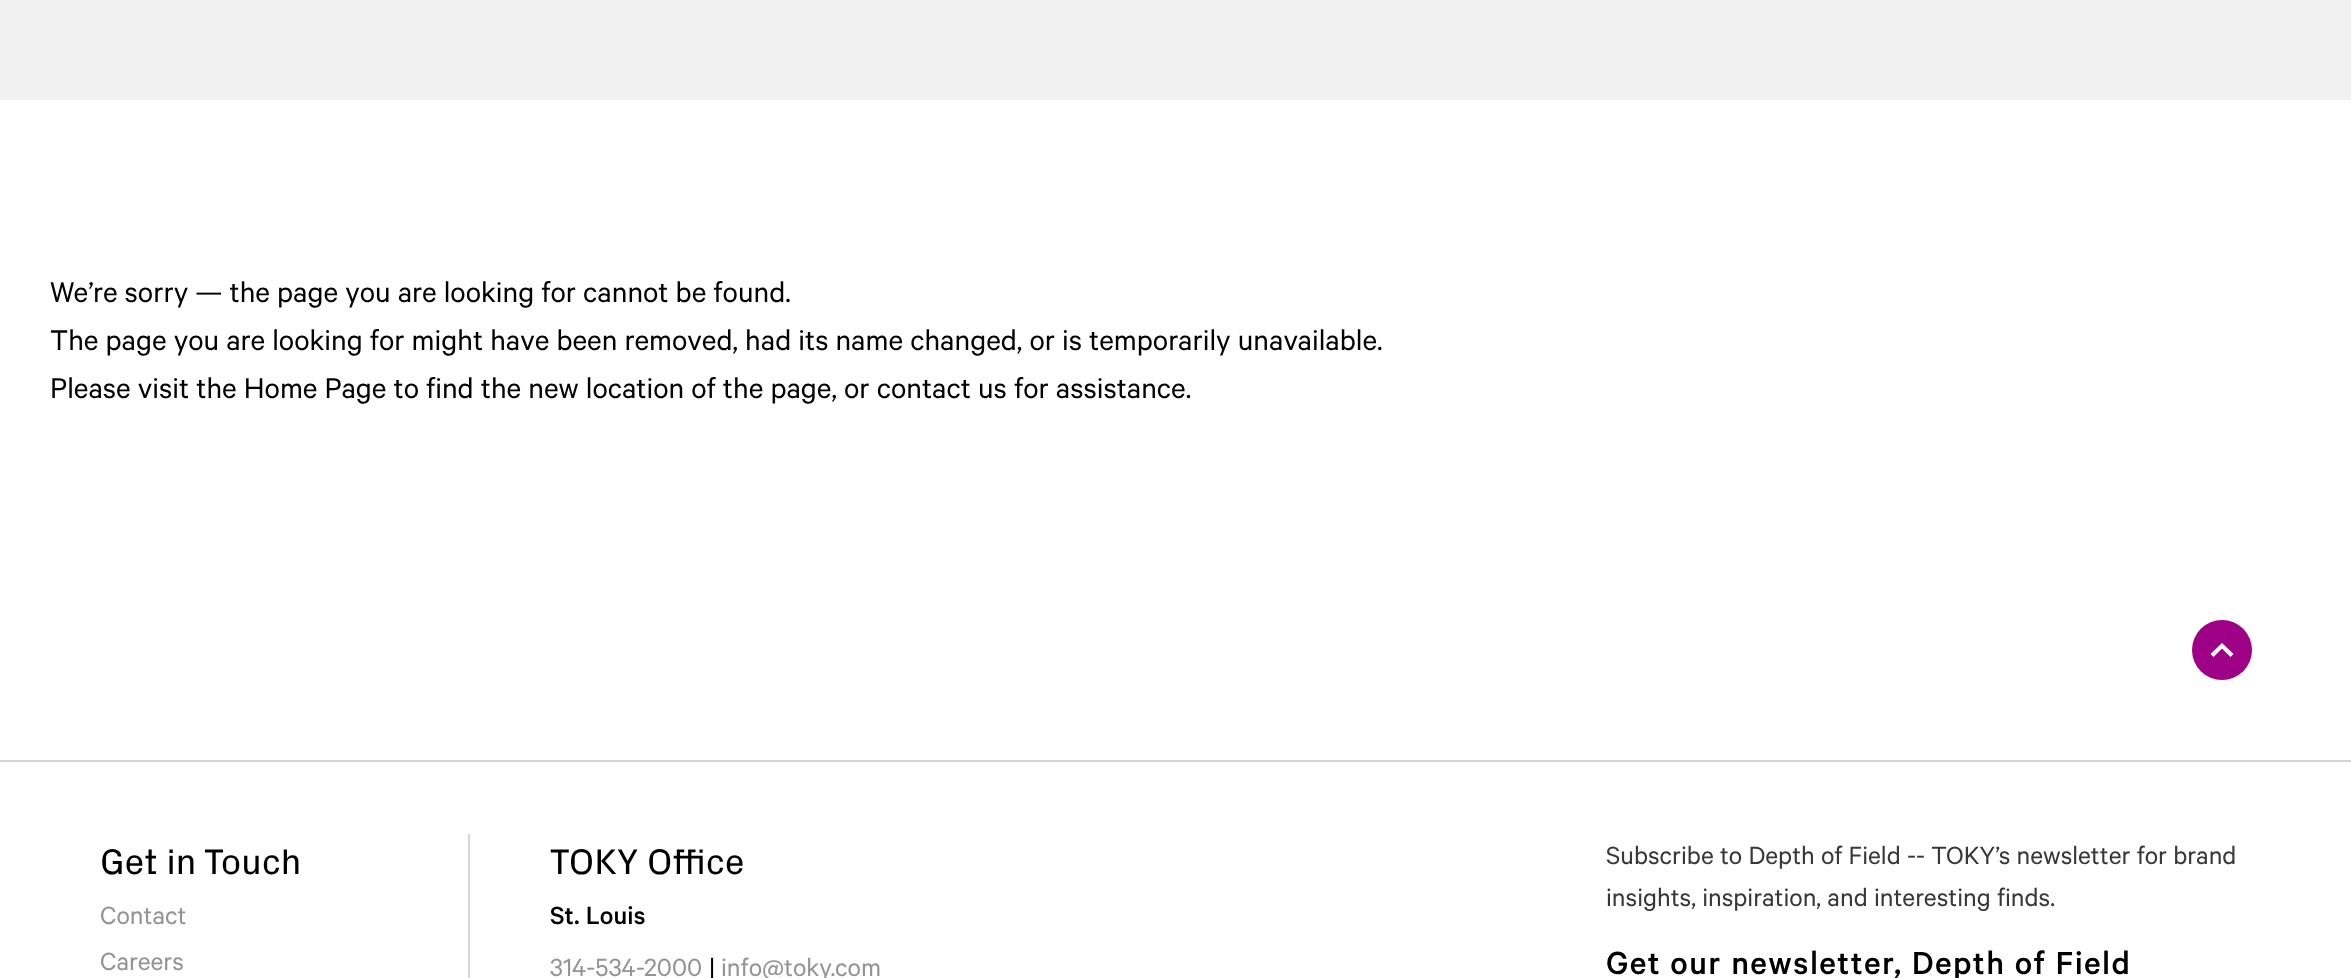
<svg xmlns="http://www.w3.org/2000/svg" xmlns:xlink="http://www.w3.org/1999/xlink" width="2351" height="978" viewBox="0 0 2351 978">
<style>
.cls-1{font:32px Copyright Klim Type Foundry;fill:#000000}
.cls-2{font:36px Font;fill:#000000}
.cls-3{font:28px Copyright Klim Type Foundry;fill:#949494}
.cls-4{font:500 28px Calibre;fill:#000000}
.cls-5{font:28px Copyright Klim Type Foundry;fill:#000000}
.cls-6{font:28px Copyright Klim Type Foundry;fill:#383838}
.cls-7{font:500 36px Calibre;letter-spacing:1.35px;fill:#000000}
</style>
<rect width="100%" height="100%" fill="#ffffff"/>
<rect fill="#f1f1f1" x="0" y="0" width="2351" height="100"/>
<circle fill="#9e0185" cx="2222" cy="650" r="30"/>
<path fill="#ffffff" d="M2213.5 657L2210.5 654L2222 643L2233.5 654L2230.5 657L2222 648.5Z"/>
<rect fill="#d5d5d5" x="0" y="760" width="2351" height="2"/>
<rect fill="#d5d5d5" x="468" y="834" width="2" height="144"/>
<text class="cls-1"><tspan x="50" y="302">We’re sorry — the page you are looking for cannot be found.</tspan><tspan x="50" y="350">The page you are looking for might have been removed, had its name changed, or is temporarily unavailable.</tspan><tspan x="50" y="398">Please visit the Home Page to find the new location of the page, or contact us for assistance.</tspan></text>
<text class="cls-2" x="100" y="874">Get in Touch</text>
<text class="cls-3"><tspan x="100" y="924">Contact</tspan><tspan x="100" y="970">Careers</tspan></text>
<text class="cls-2" x="550" y="874">TOKY Office</text>
<text class="cls-4" x="550" y="924">St. Louis</text>
<text class="cls-3" x="550" y="976">314-534-2000</text>
<text class="cls-5" x="709" y="976">|</text>
<text class="cls-3" x="721" y="976">info@toky.com</text>
<text class="cls-6"><tspan x="1606" y="864">Subscribe to Depth of Field -- TOKY’s newsletter for brand</tspan><tspan x="1606" y="906">insights, inspiration, and interesting finds.</tspan></text>
<text class="cls-7" x="1606" y="974">Get our newsletter, Depth of Field</text>
</svg>
